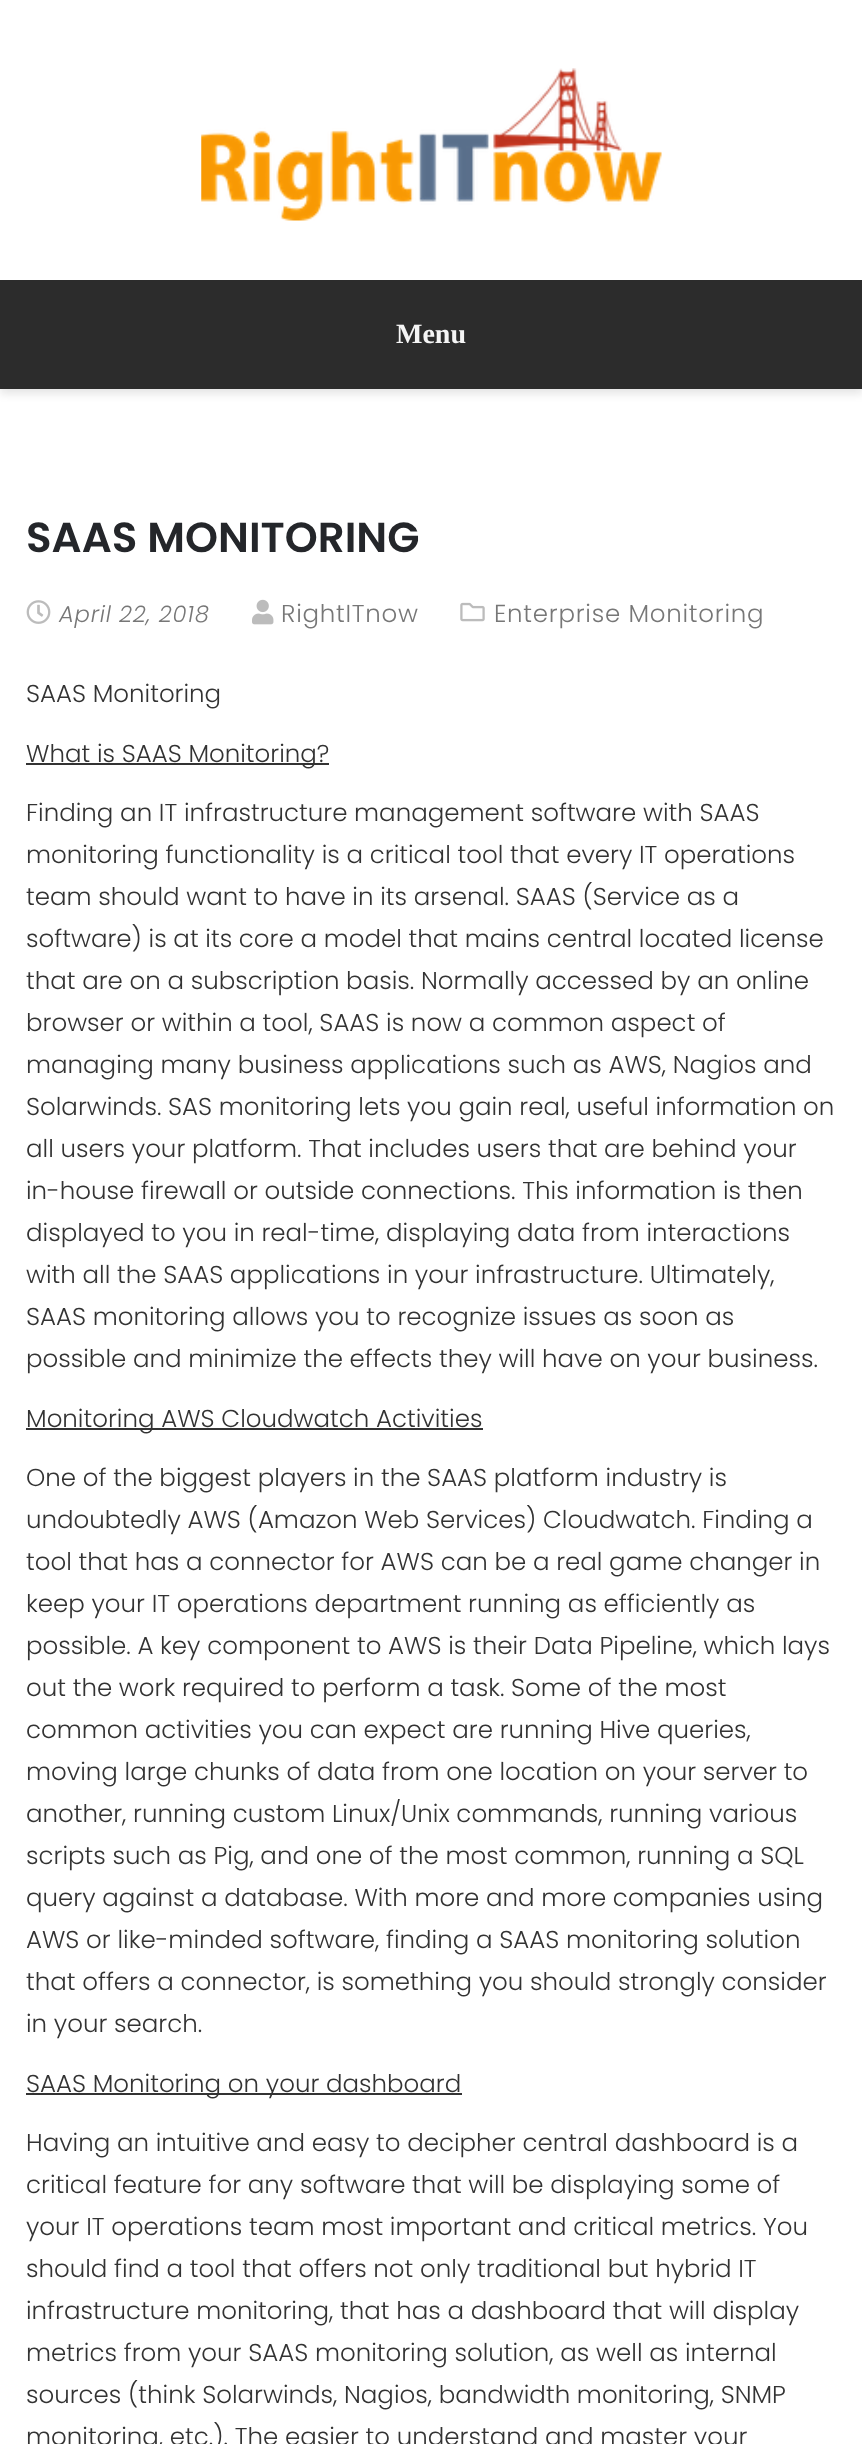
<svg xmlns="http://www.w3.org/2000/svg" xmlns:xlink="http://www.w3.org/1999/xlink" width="862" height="2444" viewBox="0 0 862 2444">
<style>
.cls-1{font:bold 28px Liberation Serif;fill:#f5f5f5}
.cls-2{font:600 42px Poppins;fill:#24262a}
.cls-3{font:italic 300 22.75px Poppins;letter-spacing:0.75px;fill:#777777}
.cls-4{font:300 24.5px Poppins;letter-spacing:0.75px;fill:#777777}
.cls-5{font:300 24.5px Poppins;fill:#333333}
</style>
<rect width="100%" height="100%" fill="#ffffff"/>
<rect fill="#000000" fill-opacity="0.1" filter="blur(4.5px)" x="0" y="5" width="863" height="389"/>
<rect fill="#ffffff" x="0" y="0" width="862" height="280"/>
<image xlink:href="image0.png" x="201" y="68" width="461" height="153"/>
<rect fill="#2c2c2c" x="0" y="280" width="862" height="109"/>
<image xlink:href="image1.png" x="26" y="600" width="25" height="24"/>
<image xlink:href="image2.png" x="252" y="599" width="22" height="26"/>
<image xlink:href="image3.png" x="460" y="602" width="25" height="20"/>
<rect fill="#333333" x="26" y="763" width="303" height="2"/>
<rect fill="#333333" x="26" y="1428" width="457" height="2"/>
<rect fill="#333333" x="26" y="2093" width="436" height="2"/>
<text class="cls-1" x="396" y="343">Menu</text>
<text class="cls-2" x="26" y="552">SAAS MONITORING</text>
<text class="cls-3" x="59" y="622">April 22, 2018</text>
<text class="cls-4" x="281" y="622">RightITnow</text>
<text class="cls-4" x="494" y="622">Enterprise Monitoring</text>
<text class="cls-5" x="26" y="702">SAAS Monitoring</text>
<text class="cls-5" x="26" y="762">What is SAAS Monitoring?</text>
<text class="cls-5"><tspan x="26" y="821">Finding an IT infrastructure management software with SAAS</tspan><tspan x="26" y="863">monitoring functionality is a critical tool that every IT operations</tspan><tspan x="26" y="905">team should want to have in its arsenal. SAAS (Service as a</tspan><tspan x="26" y="947">software) is at its core a model that mains central located license</tspan><tspan x="26" y="989">that are on a subscription basis. Normally accessed by an online</tspan><tspan x="26" y="1031">browser or within a tool, SAAS is now a common aspect of</tspan><tspan x="26" y="1073">managing many business applications such as AWS, Nagios and</tspan><tspan x="26" y="1115">Solarwinds. SAS monitoring lets you gain real, useful information on</tspan><tspan x="26" y="1157">all users your platform. That includes users that are behind your</tspan><tspan x="26" y="1199">in-house firewall or outside connections. This information is then</tspan><tspan x="26" y="1241">displayed to you in real-time, displaying data from interactions</tspan><tspan x="26" y="1283">with all the SAAS applications in your infrastructure. Ultimately,</tspan><tspan x="26" y="1325">SAAS monitoring allows you to recognize issues as soon as</tspan><tspan x="26" y="1367">possible and minimize the effects they will have on your business.</tspan></text>
<text class="cls-5" x="26" y="1427">Monitoring AWS Cloudwatch Activities</text>
<text class="cls-5"><tspan x="26" y="1486">One of the biggest players in the SAAS platform industry is</tspan><tspan x="26" y="1528">undoubtedly AWS (Amazon Web Services) Cloudwatch. Finding a</tspan><tspan x="26" y="1570">tool that has a connector for AWS can be a real game changer in</tspan><tspan x="26" y="1612">keep your IT operations department running as efficiently as</tspan><tspan x="26" y="1654">possible. A key component to AWS is their Data Pipeline, which lays</tspan><tspan x="26" y="1696">out the work required to perform a task. Some of the most</tspan><tspan x="26" y="1738">common activities you can expect are running Hive queries,</tspan><tspan x="26" y="1780">moving large chunks of data from one location on your server to</tspan><tspan x="26" y="1822">another, running custom Linux/Unix commands, running various</tspan><tspan x="26" y="1864">scripts such as Pig, and one of the most common, running a SQL</tspan><tspan x="26" y="1906">query against a database. With more and more companies using</tspan><tspan x="26" y="1948">AWS or like-minded software, finding a SAAS monitoring solution</tspan><tspan x="26" y="1990">that offers a connector, is something you should strongly consider</tspan><tspan x="26" y="2032">in your search.</tspan></text>
<text class="cls-5" x="26" y="2092">SAAS Monitoring on your dashboard</text>
<text class="cls-5"><tspan x="26" y="2151">Having an intuitive and easy to decipher central dashboard is a</tspan><tspan x="26" y="2193">critical feature for any software that will be displaying some of</tspan><tspan x="26" y="2235">your IT operations team most important and critical metrics. You</tspan><tspan x="26" y="2277">should find a tool that offers not only traditional but hybrid IT</tspan><tspan x="26" y="2319">infrastructure monitoring, that has a dashboard that will display</tspan><tspan x="26" y="2361">metrics from your SAAS monitoring solution, as well as internal</tspan><tspan x="26" y="2403">sources (think Solarwinds, Nagios, bandwidth monitoring, SNMP</tspan><tspan x="26" y="2445">monitoring, etc.). The easier to understand and master your</tspan></text>
</svg>
